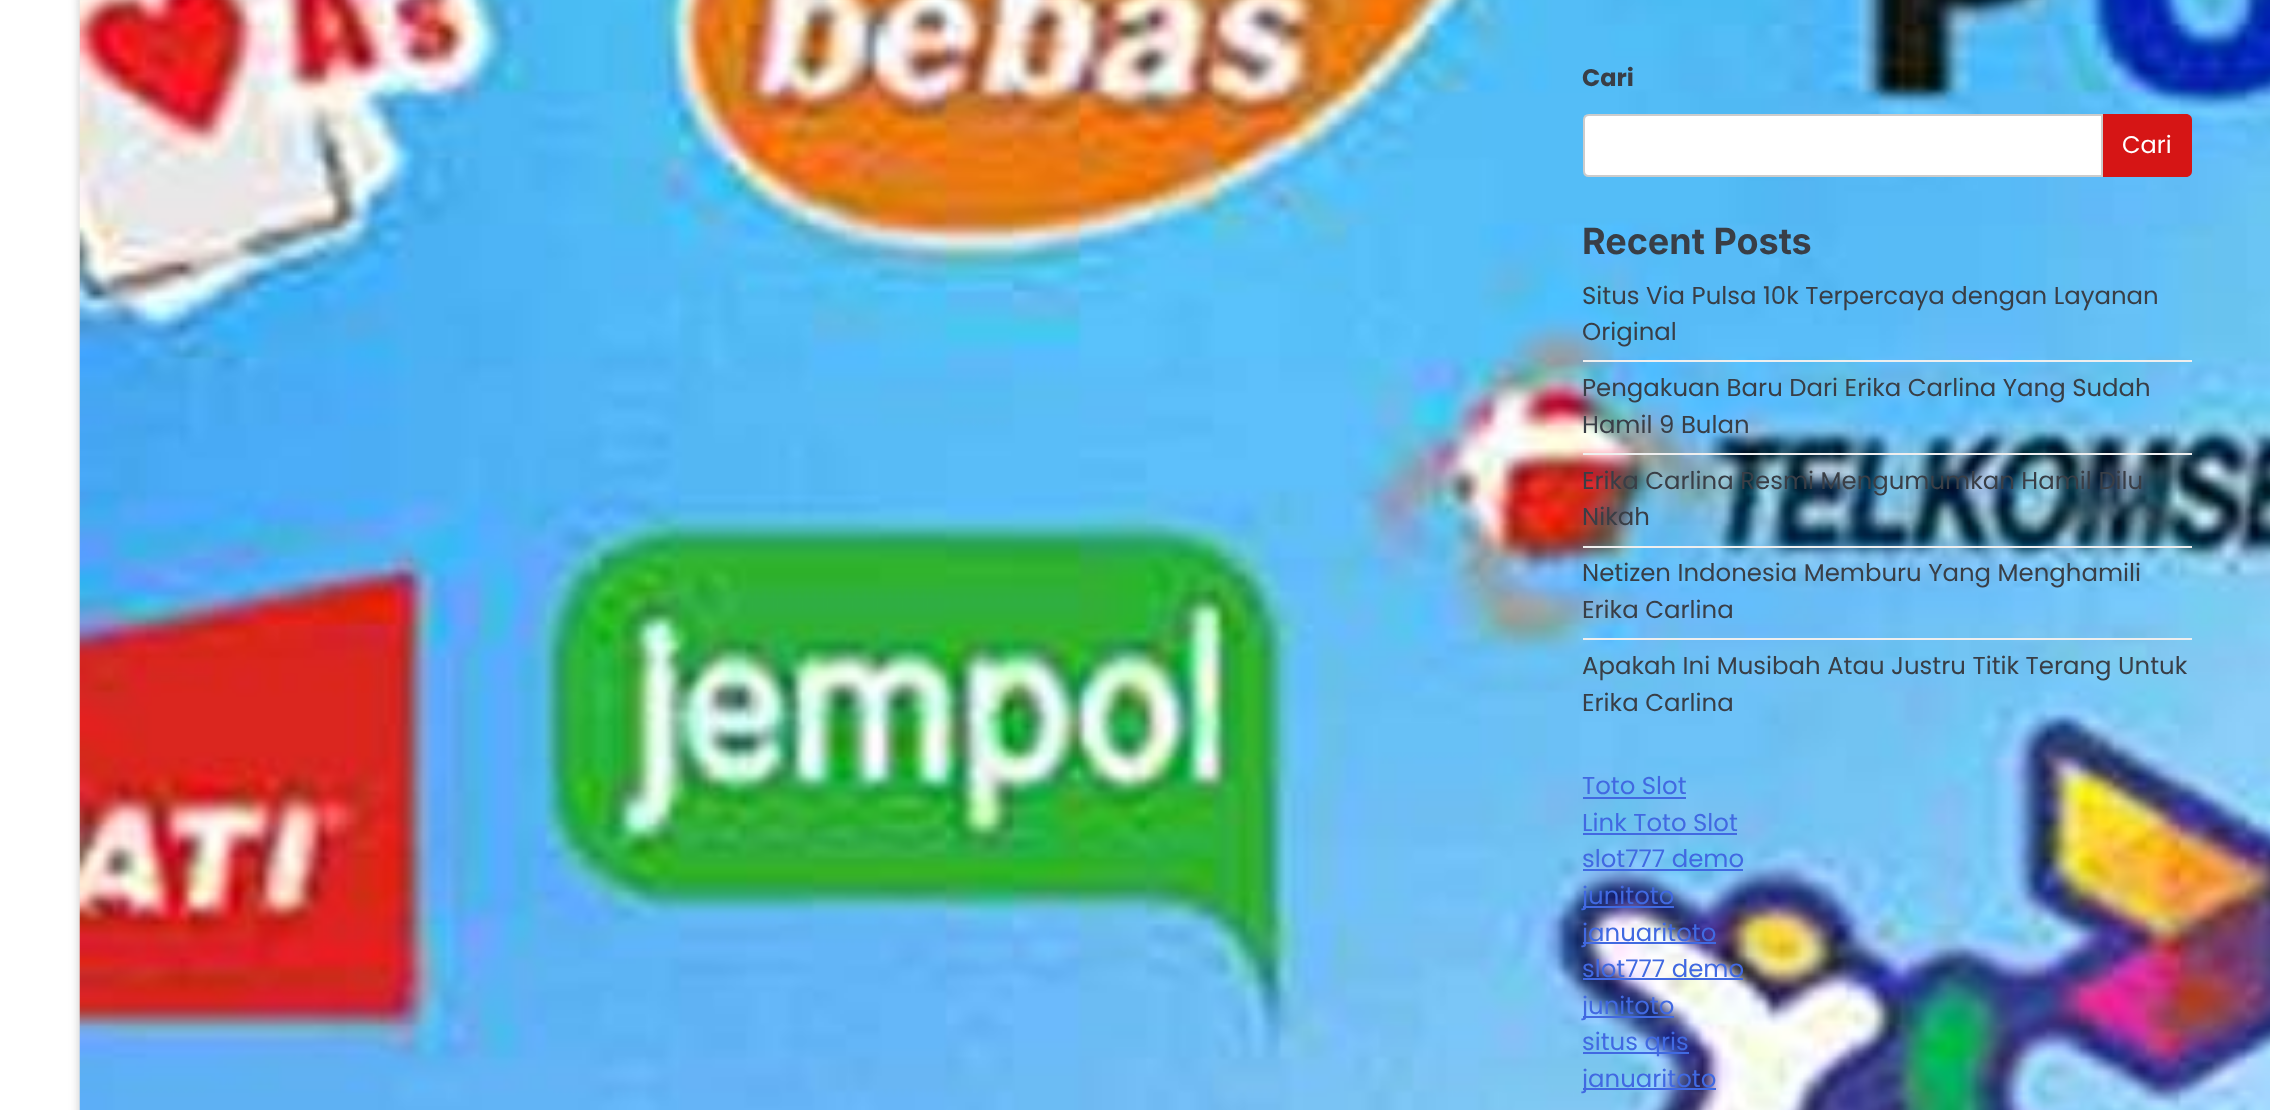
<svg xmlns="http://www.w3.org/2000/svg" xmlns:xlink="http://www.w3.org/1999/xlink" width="2270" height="1110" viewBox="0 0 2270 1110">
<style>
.cls-1{font:bold 24px Poppins;fill:#393e46}
.cls-2{font:24px Poppins;fill:#ffffff}
.cls-3{font:bold 36px Inter;fill:#393e46}
.cls-4{font:24.4px Poppins;fill:#393e46}
.cls-5{font:24.4px Poppins;fill:#4169e1}
</style>
<rect width="100%" height="100%" fill="#ffffff"/>
<rect fill="#919191" fill-opacity="0.38" filter="blur(4px)" x="78" y="-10" width="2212" height="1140" rx="8"/>
<image xlink:href="image0.png" x="79" y="0" width="2191" height="1110"/>
<path fill="#ffffff" stroke="#cccccc" stroke-width="2" d="M1589 115H2102V176H1589C1586 176 1584 174 1584 171V120C1584 117 1586 115 1589 115Z"/>
<path fill="#d61515" d="M2103 114H2186C2189.5 114 2192 116.5 2192 120V171C2192 174.5 2189.5 177 2186 177H2103Z"/>
<rect fill="#efefef" x="1583" y="360" width="609" height="2"/>
<rect fill="#efefef" x="1583" y="453" width="609" height="2"/>
<rect fill="#efefef" x="1583" y="546" width="609" height="2"/>
<rect fill="#efefef" x="1583" y="638" width="609" height="2"/>
<rect fill="#4169e1" x="1583" y="797" width="103" height="2"/>
<rect fill="#4169e1" x="1583" y="833" width="154" height="2"/>
<rect fill="#4169e1" x="1583" y="869" width="160" height="2"/>
<rect fill="#4169e1" x="1583" y="906" width="91" height="2"/>
<rect fill="#4169e1" x="1583" y="942" width="133" height="2"/>
<rect fill="#4169e1" x="1583" y="978" width="160" height="2"/>
<rect fill="#4169e1" x="1583" y="1016" width="91" height="2"/>
<rect fill="#4169e1" x="1583" y="1052" width="106" height="2"/>
<rect fill="#4169e1" x="1583" y="1088" width="133" height="2"/>
<text class="cls-1" x="1582" y="86">Cari</text>
<text class="cls-2" x="2122" y="153">Cari</text>
<text class="cls-3" x="1582" y="254">Recent Posts</text>
<text class="cls-4"><tspan x="1582" y="304">Situs Via Pulsa 10k Terpercaya dengan Layanan</tspan><tspan x="1582" y="340">Original</tspan></text>
<text class="cls-4"><tspan x="1582" y="396">Pengakuan Baru Dari Erika Carlina Yang Sudah</tspan><tspan x="1582" y="433">Hamil 9 Bulan</tspan></text>
<text class="cls-4"><tspan x="1582" y="489">Erika Carlina Resmi Mengumumkan Hamil Dilu</tspan><tspan x="1582" y="525">Nikah</tspan></text>
<text class="cls-4"><tspan x="1582" y="581">Netizen Indonesia Memburu Yang Menghamili</tspan><tspan x="1582" y="618">Erika Carlina</tspan></text>
<text class="cls-4"><tspan x="1582" y="674">Apakah Ini Musibah Atau Justru Titik Terang Untuk</tspan><tspan x="1582" y="711">Erika Carlina</tspan></text>
<text class="cls-5"><tspan x="1582" y="794">Toto Slot</tspan><tspan x="1582" y="831">Link Toto Slot</tspan><tspan x="1582" y="867">slot777 demo</tspan><tspan x="1582" y="904">junitoto</tspan><tspan x="1582" y="941">januaritoto</tspan><tspan x="1582" y="977">slot777 demo</tspan><tspan x="1582" y="1014">junitoto</tspan><tspan x="1582" y="1050">situs qris</tspan><tspan x="1582" y="1087">januaritoto</tspan></text>
</svg>
